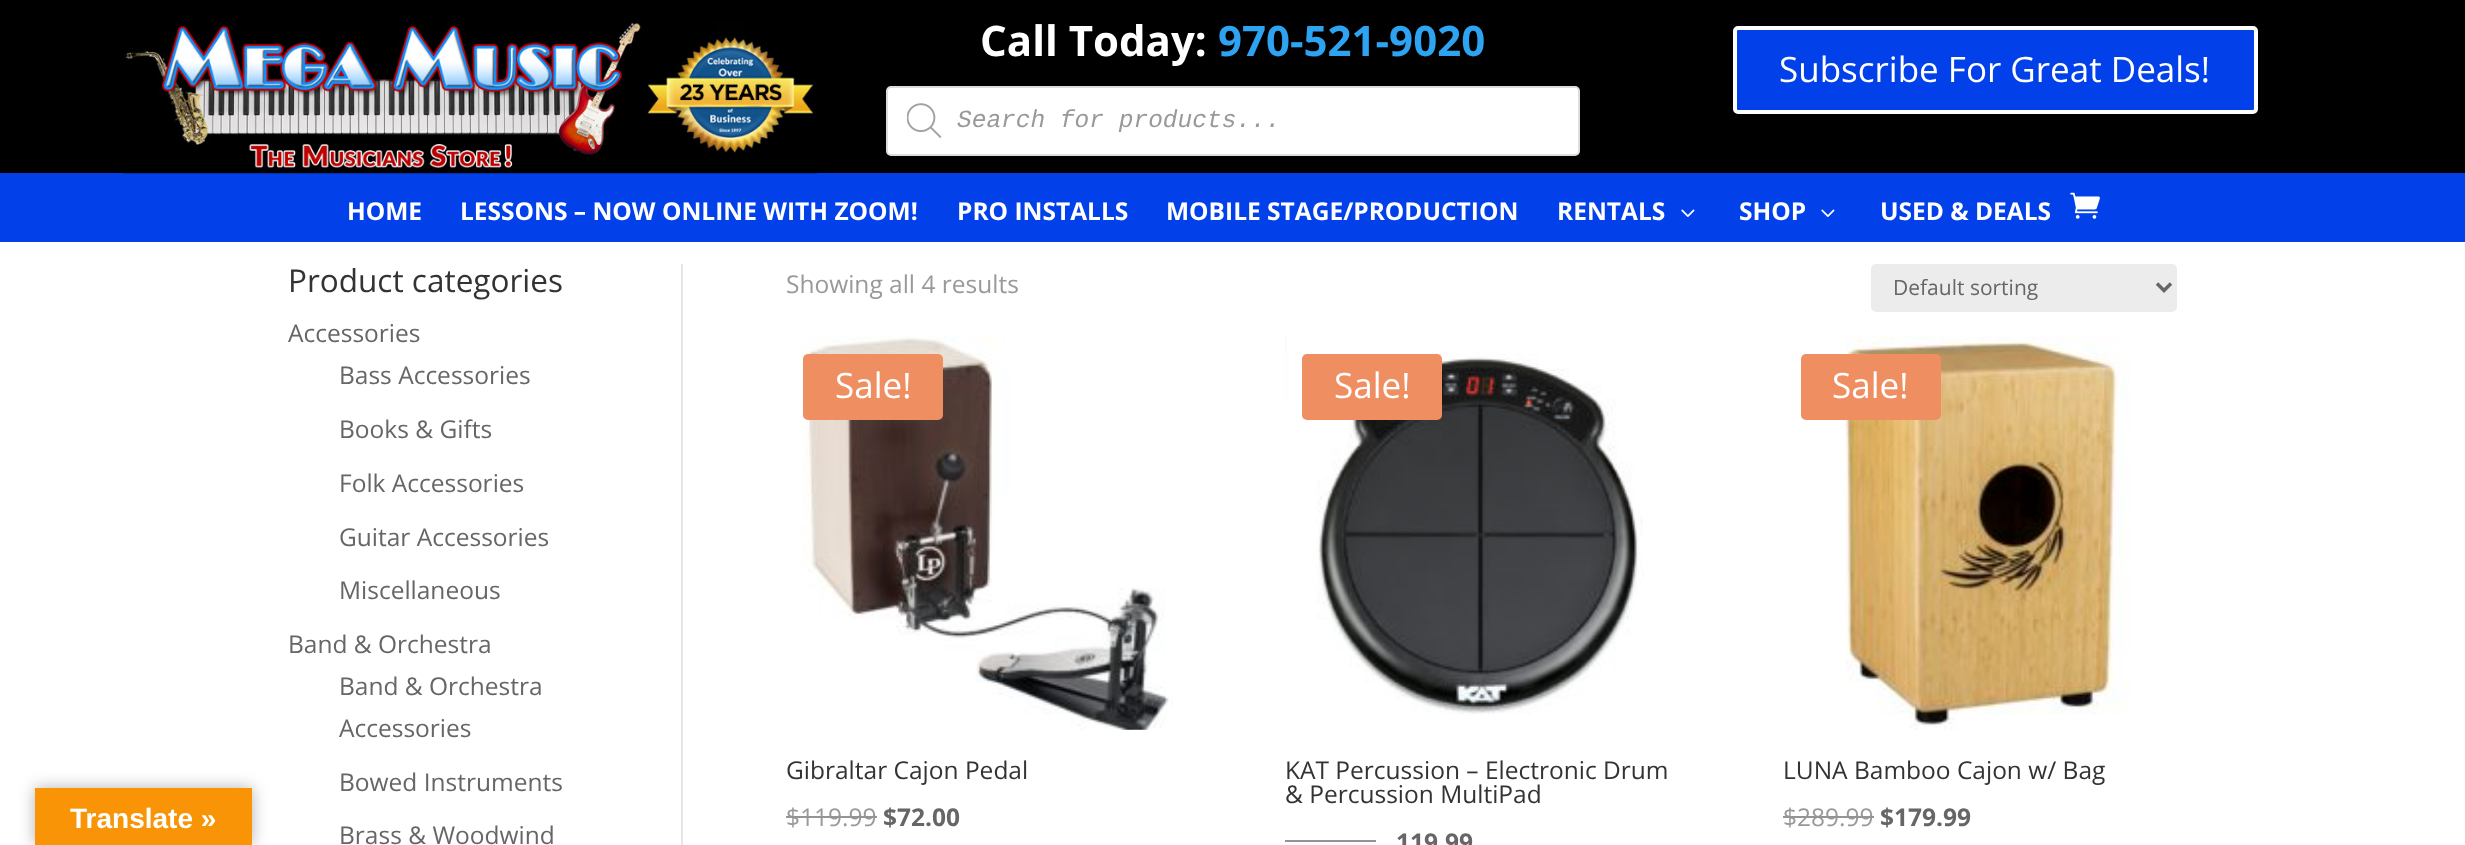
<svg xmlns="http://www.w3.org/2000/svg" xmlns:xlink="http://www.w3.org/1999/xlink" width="2465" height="845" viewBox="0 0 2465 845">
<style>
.cls-1{font:bold 28px Liberation Sans;fill:#ffffff}
.cls-2{font:bold 42px Open Sans;fill:#ffffff}
.cls-3{font:bold 42px Open Sans;fill:#2ea3f2}
.cls-4{font:italic 24.5px Liberation Mono;fill:#999999}
.cls-5{font:35px Open Sans;fill:#ffffff}
.cls-6{font:bold 24.5px Open Sans;fill:#ffffff}
.cls-7{font:31.5px Open Sans;fill:#333333}
.cls-8{font:24.5px Open Sans;fill:#666666}
.cls-9{font:24.5px Open Sans;fill:#999999}
.cls-10{font:21px Open Sans;fill:#666666}
.cls-11{font:24.5px Open Sans;fill:#333333}
.cls-12{font:bold 24.5px Open Sans;fill:#666666}
</style>
<rect width="100%" height="100%" fill="#000000"/>
<rect fill="#ffffff" x="0" y="242" width="2465" height="603"/>
<rect fill="#000000" fill-opacity="0.3" filter="blur(8px)" x="35" y="788" width="217" height="57"/>
<rect fill="#f89406" x="35" y="788" width="217" height="57"/>
<rect fill="#0240e9" x="0" y="173" width="2465" height="69"/>
<image xlink:href="image0.png" x="122" y="20" width="696" height="154"/>
<rect fill="#ffffff" stroke="#dddddd" stroke-width="2" x="887" y="87" width="692" height="68" rx="4"/>
<image xlink:href="image1.png" x="907" y="103" width="35" height="35"/>
<rect fill="#0240e9" stroke="#ffffff" stroke-width="4" x="1735" y="28" width="521" height="84" rx="3"/>
<image xlink:href="image2.png" x="1681" y="209" width="14" height="8"/>
<image xlink:href="image2.png" x="1821" y="209" width="14" height="8"/>
<image xlink:href="image3.png" x="2070" y="192" width="30" height="27"/>
<rect fill="#e6e6e6" x="681" y="264" width="2" height="581"/>
<rect fill="#ececec" x="1871" y="264" width="306" height="48" rx="5"/>
<path fill="none" stroke="#666666" stroke-width="3.5" d="M2157 283.5L2164 290.5L2171 283.5"/>
<image xlink:href="image4.png" x="802" y="336" width="371" height="394"/>
<rect fill="#ef8f61" x="803" y="354" width="140" height="66" rx="5"/>
<image xlink:href="image5.png" x="1285" y="336" width="359" height="379"/>
<rect fill="#ef8f61" x="1302" y="354" width="140" height="66" rx="5"/>
<rect fill="#949494" x="1285" y="840" width="91" height="2"/>
<image xlink:href="image6.png" x="1844" y="336" width="287" height="394"/>
<rect fill="#ef8f61" x="1801" y="354" width="140" height="66" rx="5"/>
<text class="cls-1" x="70" y="828">Translate »</text>
<text class="cls-2" x="980" y="56">Call Today:</text>
<text class="cls-3" x="1218" y="56">970-521-9020</text>
<text class="cls-4" x="957" y="127">Search for products...</text>
<text class="cls-5" x="1779" y="82">Subscribe For Great Deals!</text>
<text class="cls-6" x="347" y="220">HOME</text>
<text class="cls-6" x="460" y="220">LESSONS – NOW ONLINE WITH ZOOM!</text>
<text class="cls-6" x="957" y="220">PRO INSTALLS</text>
<text class="cls-6" x="1166" y="220">MOBILE STAGE/PRODUCTION</text>
<text class="cls-6" x="1557" y="220">RENTALS</text>
<text class="cls-6" x="1739" y="220">SHOP</text>
<text class="cls-6" x="1880" y="220">USED &amp; DEALS</text>
<text class="cls-7" x="288" y="292">Product categories</text>
<text class="cls-8" x="288" y="342">Accessories</text>
<text class="cls-8" x="339" y="384">Bass Accessories</text>
<text class="cls-8" x="339" y="438">Books &amp; Gifts</text>
<text class="cls-8" x="339" y="492">Folk Accessories</text>
<text class="cls-8" x="339" y="546">Guitar Accessories</text>
<text class="cls-8" x="339" y="599">Miscellaneous</text>
<text class="cls-8" x="288" y="653">Band &amp; Orchestra</text>
<text class="cls-8"><tspan x="339" y="695">Band &amp; Orchestra</tspan><tspan x="339" y="737">Accessories</tspan></text>
<text class="cls-8" x="339" y="791">Bowed Instruments</text>
<text class="cls-8" x="339" y="844">Brass &amp; Woodwind</text>
<text class="cls-9" x="786" y="293">Showing all 4 results</text>
<text class="cls-10" x="1893" y="295">Default sorting</text>
<text class="cls-5" x="835" y="398">Sale!</text>
<text class="cls-11" x="786" y="779">Gibraltar Cajon Pedal</text>
<text class="cls-9" x="786" y="826">$119.99</text>
<rect fill="#949494" x="786" y="816" width="91" height="2"/>
<text class="cls-12" x="883" y="826">$72.00</text>
<text class="cls-5" x="1334" y="398">Sale!</text>
<text class="cls-11"><tspan x="1285" y="779">KAT Percussion – Electronic Drum</tspan><tspan x="1285" y="803">&amp; Percussion MultiPad</tspan></text>
<text class="cls-12" x="1396" y="851">119.99</text>
<text class="cls-5" x="1832" y="398">Sale!</text>
<text class="cls-11" x="1783" y="779">LUNA Bamboo Cajon w/ Bag</text>
<text class="cls-9" x="1783" y="826">$289.99</text>
<rect fill="#949494" x="1783" y="816" width="91" height="2"/>
<text class="cls-12" x="1880" y="826">$179.99</text>
</svg>
